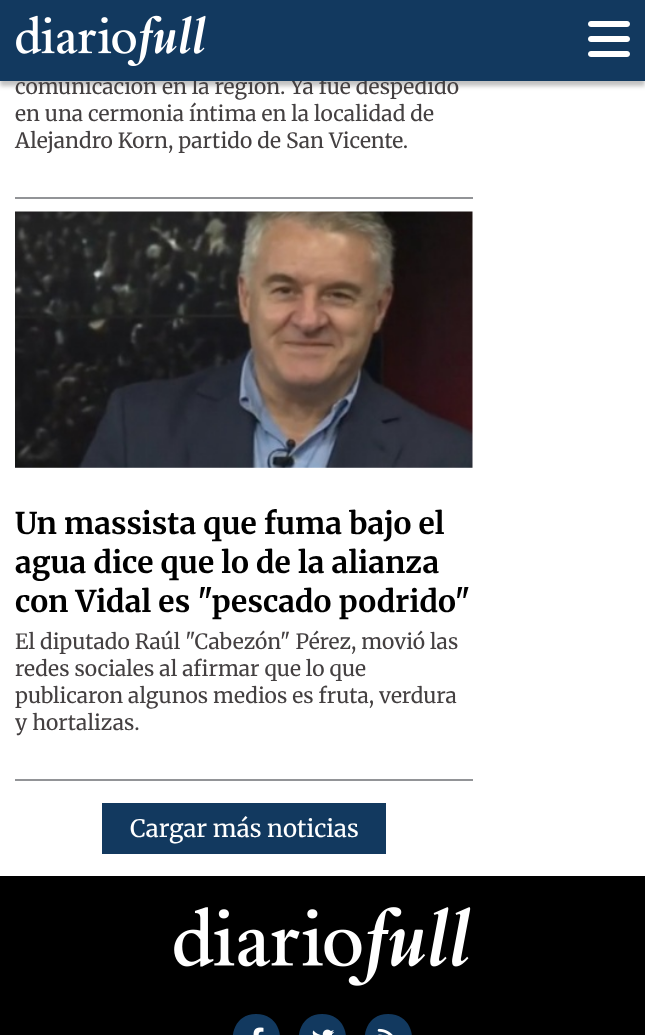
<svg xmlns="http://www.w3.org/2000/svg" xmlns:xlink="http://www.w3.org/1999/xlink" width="645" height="1035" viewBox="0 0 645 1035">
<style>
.cls-1{font:21px Merriweather;fill:#444041}
.cls-2{font:bold 30px Merriweather;fill:#000000}
.cls-3{font:24px Merriweather;fill:#ffffff}
</style>
<rect width="100%" height="100%" fill="#ffffff"/>
<rect fill="#323232" fill-opacity="0.3" filter="blur(2px)" x="0" y="5" width="645" height="81"/>
<rect fill="#929497" x="15" y="197" width="458" height="2"/>
<rect fill="#929497" x="15" y="779" width="458" height="2"/>
<image xlink:href="image2.png" x="15" y="211" width="458" height="257"/>
<rect fill="#12395f" x="102" y="803" width="284" height="51"/>
<rect fill="#000000" x="0" y="876" width="645" height="159"/>
<image xlink:href="image3.png" x="174" y="907" width="297" height="79"/>
<path fill="#12395f" d="M256 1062C288 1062 288 1014 256 1014C225 1014 225 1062 256 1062Z"/>
<image xlink:href="image4.png" x="253" y="1027" width="11" height="8"/>
<path fill="#12395f" d="M322 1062C354 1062 354 1014 322 1014C291 1014 291 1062 322 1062Z"/>
<image xlink:href="image5.png" x="312" y="1029" width="23" height="6"/>
<path fill="#12395f" d="M388 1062C420 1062 420 1014 388 1014C357 1014 357 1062 388 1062Z"/>
<image xlink:href="image6.png" x="377" y="1028" width="16" height="7"/>
<text class="cls-1" x="15" y="94">comunicación en la región. Ya fue despedido</text>
<rect fill="#12395f" x="0" y="0" width="645" height="81"/>
<image xlink:href="image1.png" x="588" y="21" width="42" height="36"/>
<image xlink:href="image0.png" x="16" y="15" width="190" height="51"/>
<text class="cls-1"><tspan x="15" y="121">en una cermonia íntima en la localidad de</tspan><tspan x="15" y="148">Alejandro Korn, partido de San Vicente.</tspan></text>
<text class="cls-2"><tspan x="15" y="534">Un massista que fuma bajo el</tspan><tspan x="15" y="573">agua dice que lo de la alianza</tspan><tspan x="15" y="612">con Vidal es "pescado podrido"</tspan></text>
<text class="cls-1"><tspan x="15" y="649">El diputado Raúl "Cabezón" Pérez, movió las</tspan><tspan x="15" y="676">redes sociales al afirmar que lo que</tspan><tspan x="15" y="703">publicaron algunos medios es fruta, verdura</tspan><tspan x="15" y="730">y hortalizas.</tspan></text>
<text class="cls-3" x="130" y="837">Cargar más noticias</text>
</svg>
